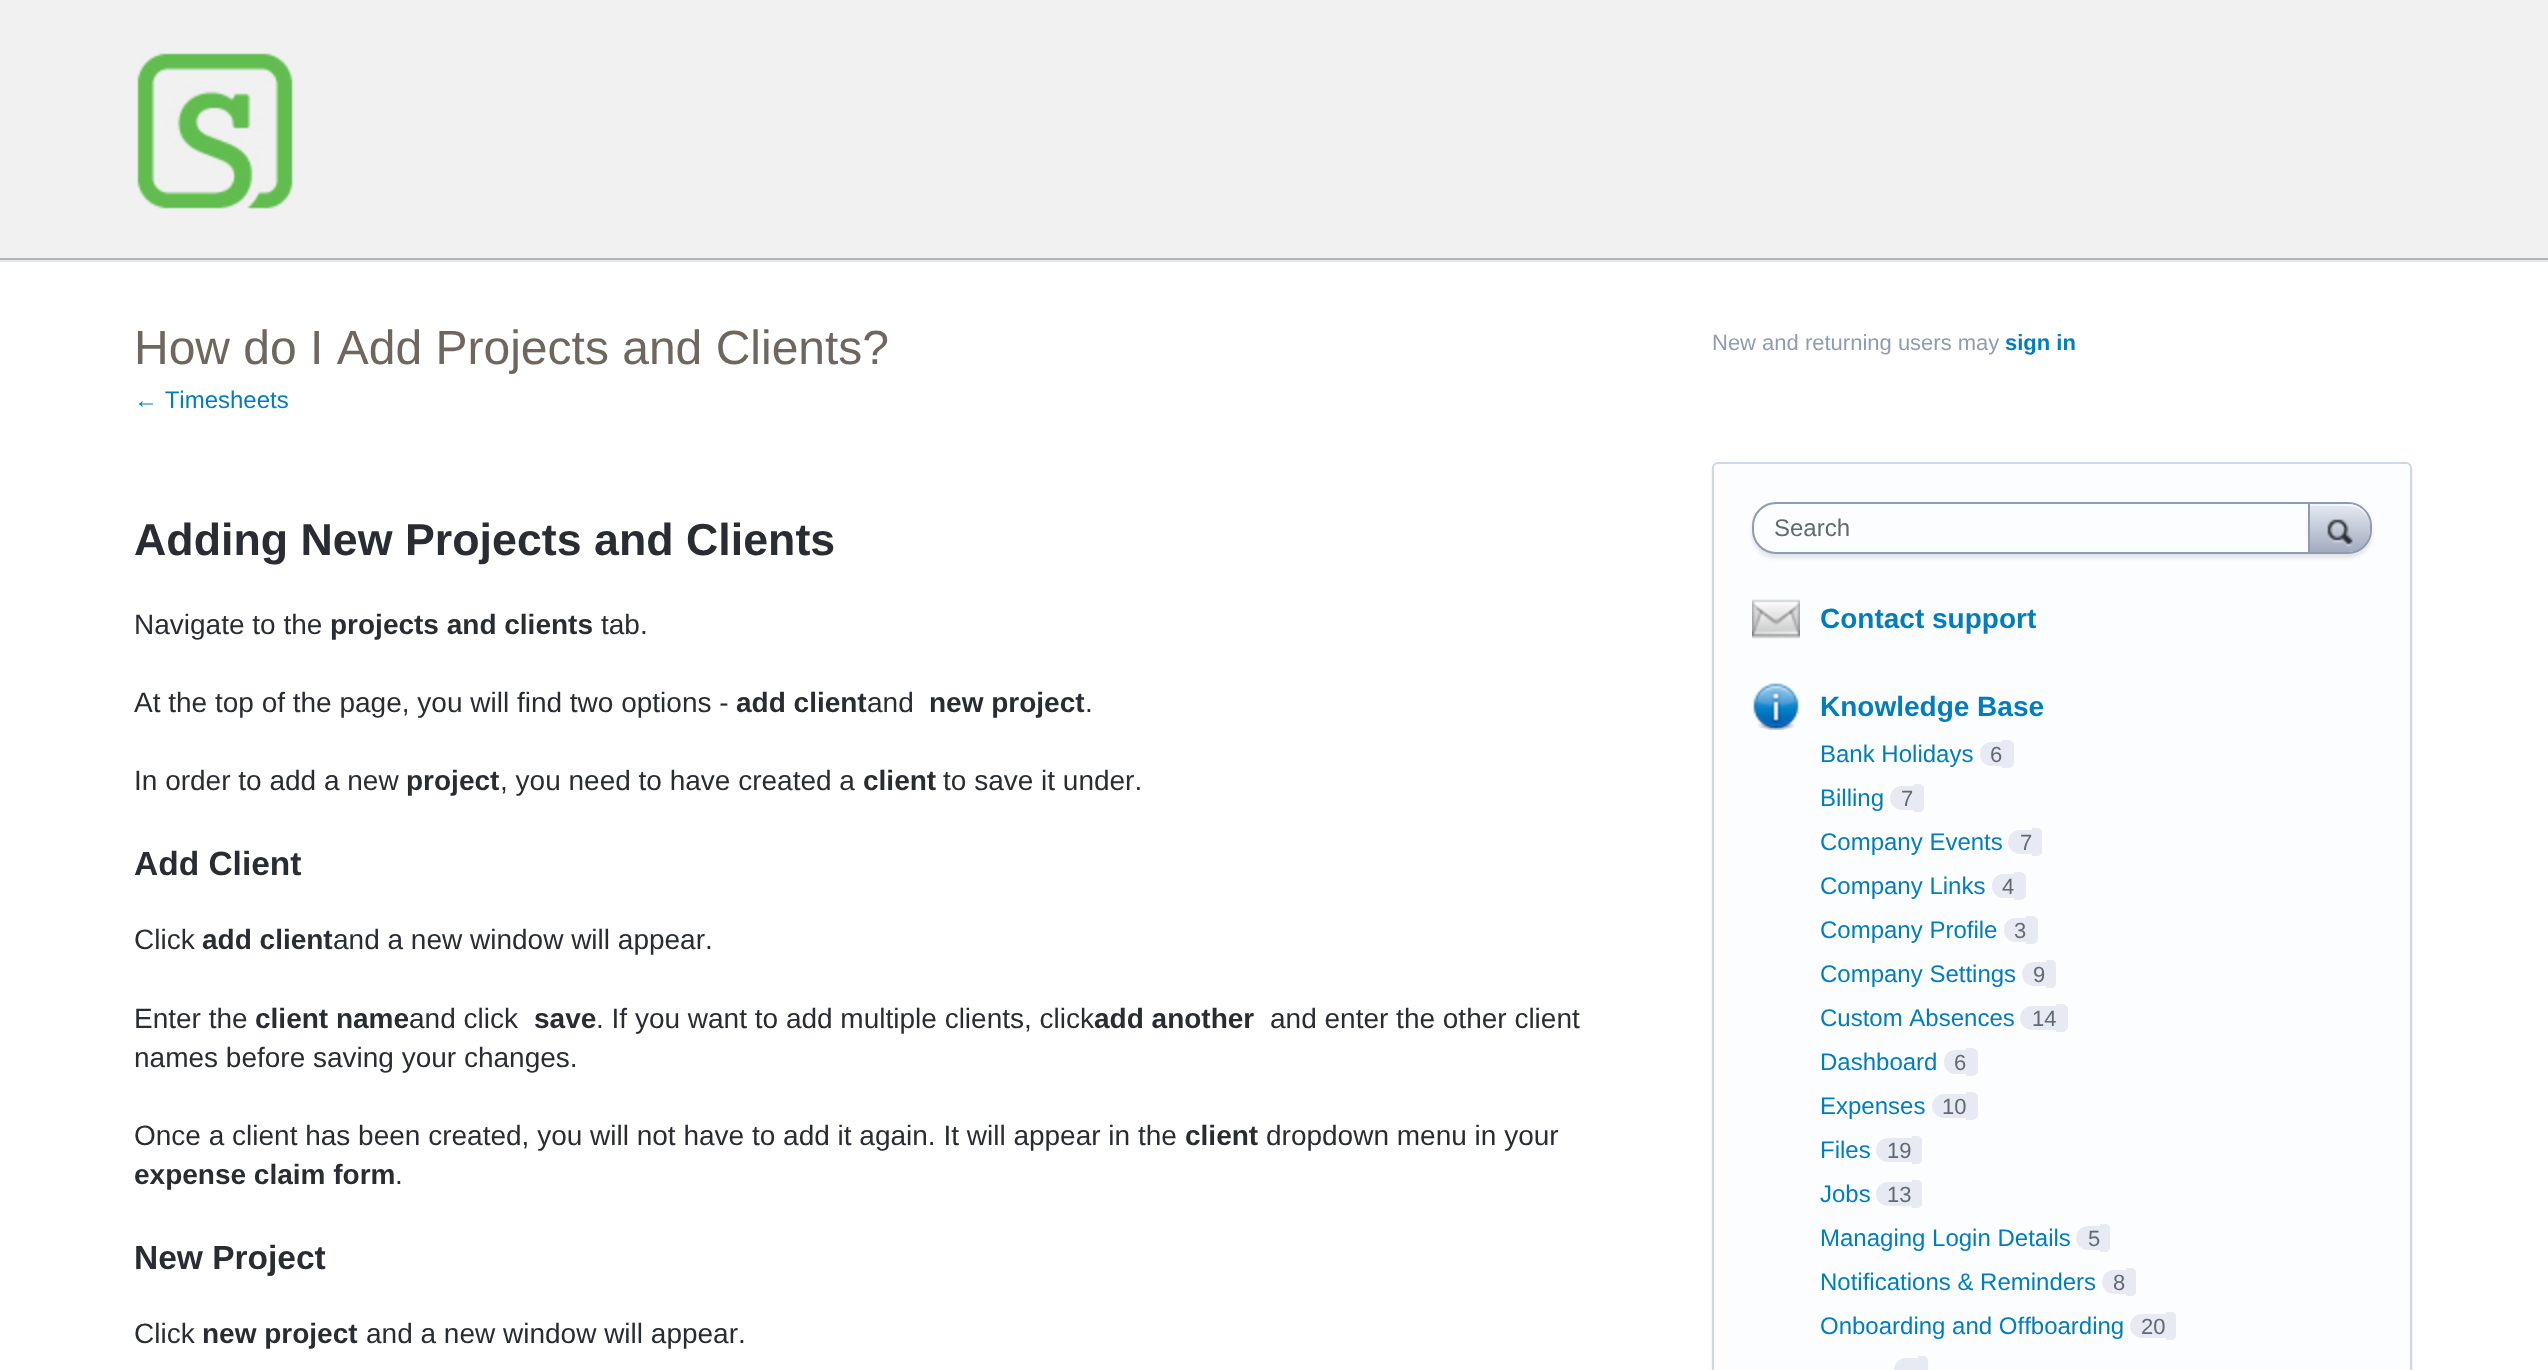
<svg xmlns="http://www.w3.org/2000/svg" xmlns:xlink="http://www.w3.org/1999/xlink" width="2548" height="1370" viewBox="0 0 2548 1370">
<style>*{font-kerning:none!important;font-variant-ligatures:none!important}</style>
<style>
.cls-1{font:48px Liberation Sans;fill:#6f675e}
.cls-2{font:24px Liberation Sans;fill:#007dbf}
.cls-3{font:bold 44.75px Liberation Sans;fill:#292c33}
.cls-4{font:28px Liberation Sans;fill:#292c33}
.cls-5{font:bold 28px Liberation Sans;fill:#292c33}
.cls-6{font:bold 33.5px Liberation Sans;fill:#292c33}
.cls-7{font:22px Liberation Sans;fill:#8f9bb3}
.cls-8{font:bold 22px Liberation Sans;fill:#007dbf}
.cls-9{font:24px Liberation Sans;fill:#616973}
.cls-10{font:bold 28px Liberation Sans;fill:#007dbf}
.cls-11{font:22px Liberation Sans;fill:#616973}
</style>
<defs>
<clipPath id="clip1"><rect x="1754" y="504" width="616" height="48" rx="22"/></clipPath>
<linearGradient id="g1" gradientUnits="userSpaceOnUse" x1="2310" y1="504" x2="2310" y2="552"><stop offset="0" stop-color="#e6eaf2"/><stop offset="1" stop-color="#a2acbf"/></linearGradient>
</defs>
<rect width="100%" height="100%" fill="#ffffff"/>
<rect fill="#f1f1f1" x="0" y="0" width="2548" height="258"/>
<rect fill="#b5b5b5" x="0" y="258" width="2548" height="2"/>
<image xlink:href="image0.png" x="137" y="53" width="156" height="156"/>
<rect fill="#e3e8f2" x="0" y="260" width="2548" height="2"/>
<rect fill="#000000" fill-opacity="0.1" filter="blur(1px)" x="1712" y="464" width="700" height="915" rx="6"/>
<rect fill="#fcfdff" stroke="#cfd7e6" stroke-width="2" x="1713" y="463" width="698" height="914" rx="5"/>
<rect fill="#000000" fill-opacity="0.1" filter="blur(2px)" x="1752" y="506" width="620" height="52" rx="24"/>
<rect fill="#fcfdff" stroke="#8f9bb3" stroke-width="2" x="1753" y="503" width="618" height="50" rx="23"/>
<g clip-path="url(#clip1)">
<rect fill="#000000" fill-opacity="0.1" filter="blur(2px)" x="2308" y="504" width="64" height="50" rx="24"/>
</g>
<path fill="url(#g1)" d="M2310 504H2348C2360 504 2370 514 2370 526V528C2370 541 2360 552 2348 552H2310Z"/>
<path fill="#ffffff" fill-opacity="0.5" d="M2310 504V506H2348C2360 506 2370 516 2370 528C2370 515 2362 504 2348 504Z"/>
<path fill="#8f9bb3" fill-rule="evenodd" d="M2370 528C2370 541 2362 552 2348 552C2360 552 2370 541 2370 528ZM2364 510C2367 514 2370 520 2370 526C2370 520 2368 514 2364 510Z"/>
<rect fill="#8f9bb3" x="2308" y="504" width="2" height="48"/>
<image xlink:href="image1.png" x="2327" y="519" width="26" height="28"/>
<image xlink:href="image2.png" x="1752" y="599" width="48" height="40"/>
<image xlink:href="image3.png" x="1753" y="683" width="46" height="47"/>
<path fill="#e7eaf2" d="M1991 742H2002V766H1991C1985 766 1980 761 1980 755V753C1980 747 1985 742 1991 742Z"/>
<path fill="#e7eaf2" d="M2002 740H2008C2011.5 740 2014 742.5 2014 746V762C2014 765.5 2011.5 768 2008 768H2002Z"/>
<path fill="#e7eaf2" d="M1902 786H1914V810H1902C1895.5 810 1890 804.5 1890 798C1890 791.5 1895.5 786 1902 786Z"/>
<path fill="#e7eaf2" d="M1914 784H1919C1922 784 1924 786 1924 789V807C1924 810 1922 812 1919 812H1914Z"/>
<path fill="#e7eaf2" d="M2020 830H2032V854H2020C2013.5 854 2008 848.5 2008 842C2008 835.5 2013.5 830 2020 830Z"/>
<path fill="#e7eaf2" d="M2032 828H2037C2040 828 2042 830 2042 833V851C2042 854 2040 856 2037 856H2032Z"/>
<path fill="#e7eaf2" d="M2003 874H2014V898H2003C1997 898 1992 893 1992 887V885C1992 879 1997 874 2003 874Z"/>
<path fill="#e7eaf2" d="M2014 872H2020C2023.5 872 2026 874.5 2026 878V894C2026 897.5 2023.5 900 2020 900H2014Z"/>
<path fill="#e7eaf2" d="M2015 918H2026V942H2015C2009 942 2004 937 2004 931V929C2004 923 2009 918 2015 918Z"/>
<path fill="#e7eaf2" d="M2026 916H2032C2035.5 916 2038 918.5 2038 922V938C2038 941.5 2035.5 944 2032 944H2026Z"/>
<path fill="#e7eaf2" d="M2034 962H2046V986H2034C2027.5 986 2022 980.5 2022 974C2022 967.5 2027.5 962 2034 962Z"/>
<path fill="#e7eaf2" d="M2046 960H2051C2054 960 2056 962 2056 965V983C2056 986 2054 988 2051 988H2046Z"/>
<path fill="#e7eaf2" d="M2032 1006H2056V1030H2032C2025.5 1030 2020 1024.5 2020 1018C2020 1011.5 2025.5 1006 2032 1006Z"/>
<path fill="#e7eaf2" d="M2056 1004H2062C2065.5 1004 2068 1006.5 2068 1010V1026C2068 1029.5 2065.5 1032 2062 1032H2056Z"/>
<path fill="#e7eaf2" d="M1955 1050H1966V1074H1955C1949 1074 1944 1069 1944 1063V1061C1944 1055 1949 1050 1955 1050Z"/>
<path fill="#e7eaf2" d="M1966 1048H1972C1975.5 1048 1978 1050.5 1978 1054V1070C1978 1073.5 1975.5 1076 1972 1076H1966Z"/>
<path fill="#e7eaf2" d="M1944 1094H1966V1118H1944C1937.5 1118 1932 1112.5 1932 1106C1932 1099.5 1937.5 1094 1944 1094Z"/>
<path fill="#e7eaf2" d="M1966 1092H1972C1975.5 1092 1978 1094.5 1978 1098V1114C1978 1117.5 1975.5 1120 1972 1120H1966Z"/>
<path fill="#e7eaf2" d="M1888 1138H1912V1162H1888C1881.5 1162 1876 1156.5 1876 1150C1876 1143.5 1881.5 1138 1888 1138Z"/>
<path fill="#e7eaf2" d="M1912 1136H1917C1920 1136 1922 1138 1922 1141V1159C1922 1162 1920 1164 1917 1164H1912Z"/>
<path fill="#e7eaf2" d="M1888 1182H1912V1206H1888C1881.5 1206 1876 1200.5 1876 1194C1876 1187.5 1881.5 1182 1888 1182Z"/>
<path fill="#e7eaf2" d="M1912 1180H1917C1920 1180 1922 1182 1922 1185V1203C1922 1206 1920 1208 1917 1208H1912Z"/>
<path fill="#e7eaf2" d="M2088 1226H2100V1250H2088C2081.5 1250 2076 1244.5 2076 1238C2076 1231.5 2081.5 1226 2088 1226Z"/>
<path fill="#e7eaf2" d="M2100 1224H2105C2108 1224 2110 1226 2110 1229V1247C2110 1250 2108 1252 2105 1252H2100Z"/>
<path fill="#e7eaf2" d="M2114 1270H2126V1294H2114C2107.5 1294 2102 1288.5 2102 1282C2102 1275.5 2107.5 1270 2114 1270Z"/>
<path fill="#e7eaf2" d="M2126 1268H2131C2134 1268 2136 1270 2136 1273V1291C2136 1294 2134 1296 2131 1296H2126Z"/>
<path fill="#e7eaf2" d="M2142 1314H2166V1338H2142C2135.5 1338 2130 1332.5 2130 1326C2130 1319.5 2135.5 1314 2142 1314Z"/>
<path fill="#e7eaf2" d="M2166 1312H2171C2174 1312 2176 1314 2176 1317V1335C2176 1338 2174 1340 2171 1340H2166Z"/>
<path fill="#e7eaf2" d="M1906 1358H1918V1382H1906C1899.5 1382 1894 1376.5 1894 1370C1894 1363.5 1899.5 1358 1906 1358Z"/>
<path fill="#e7eaf2" d="M1918 1356H1923C1926 1356 1928 1358 1928 1361V1370C1928 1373 1926 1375 1923 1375H1918Z"/>
<text class="cls-1" x="134" y="364">How do I Add Projects and Clients?</text>
<text class="cls-2" x="134" y="408">← Timesheets</text>
<text class="cls-3" x="134" y="555">Adding New Projects and Clients</text>
<text class="cls-4" x="134" y="634">Navigate to the</text>
<text class="cls-5" x="330" y="634">projects and clients</text>
<text class="cls-4" x="601" y="634">tab.</text>
<text class="cls-4" x="134" y="712">At the top of the page, you will find two options -</text>
<text class="cls-5" x="736" y="712">add client</text>
<text class="cls-4" x="867" y="712"> and</text>
<text class="cls-5" x="929" y="712">new project</text>
<text class="cls-4" x="1085" y="712">.</text>
<text class="cls-4" x="134" y="790">In order to add a new</text>
<text class="cls-5" x="406" y="790">project</text>
<text class="cls-4" x="500" y="790">, you need to have created a</text>
<text class="cls-5" x="863" y="790">client</text>
<text class="cls-4" x="943" y="790">to save it under.</text>
<text class="cls-6" x="134" y="875">Add Client</text>
<text class="cls-4" x="134" y="949">Click</text>
<text class="cls-5" x="202" y="949">add client</text>
<text class="cls-4" x="333" y="949"> and a new window will appear.</text>
<text class="cls-4" x="134" y="1028">Enter the</text>
<text class="cls-5" x="255" y="1028">client name</text>
<text class="cls-4" x="409" y="1028"> and click</text>
<text class="cls-5" x="534" y="1028">save</text>
<text class="cls-4" x="596" y="1028">. If you want to add multiple clients, click</text>
<text class="cls-5" x="1094" y="1028"> add another</text>
<text class="cls-4" x="1270" y="1028">and enter the other client</text>
<text class="cls-4" x="134" y="1067">names before saving your changes.</text>
<text class="cls-4" x="134" y="1145">Once a client has been created, you will not have to add it again. It will appear in the</text>
<text class="cls-5" x="1185" y="1145">client</text>
<text class="cls-4" x="1266" y="1145">dropdown menu in your</text>
<text class="cls-5" x="134" y="1184">expense claim form</text>
<text class="cls-4" x="395" y="1184">.</text>
<text class="cls-6" x="134" y="1269">New Project</text>
<text class="cls-4" x="134" y="1343">Click</text>
<text class="cls-5" x="202" y="1343">new project</text>
<text class="cls-4" x="366" y="1343">and a new window will appear.</text>
<text class="cls-7" x="1712" y="350">New and returning users may</text>
<text class="cls-8" x="2005" y="350">sign in</text>
<text class="cls-9" x="1774" y="536">Search</text>
<text class="cls-10" x="1820" y="628">Contact support</text>
<text class="cls-10" x="1820" y="716">Knowledge Base</text>
<text class="cls-2" x="1820" y="762">Bank Holidays</text>
<text class="cls-11" x="1990" y="762">6</text>
<text class="cls-2" x="1820" y="806">Billing</text>
<text class="cls-11" x="1901" y="806">7</text>
<text class="cls-2" x="1820" y="850">Company Events</text>
<text class="cls-11" x="2020" y="850">7</text>
<text class="cls-2" x="1820" y="894">Company Links</text>
<text class="cls-11" x="2002" y="894">4</text>
<text class="cls-2" x="1820" y="938">Company Profile</text>
<text class="cls-11" x="2014" y="938">3</text>
<text class="cls-2" x="1820" y="982">Company Settings</text>
<text class="cls-11" x="2033" y="982">9</text>
<text class="cls-2" x="1820" y="1026">Custom Absences</text>
<text class="cls-11" x="2032" y="1026">14</text>
<text class="cls-2" x="1820" y="1070">Dashboard</text>
<text class="cls-11" x="1954" y="1070">6</text>
<text class="cls-2" x="1820" y="1114">Expenses</text>
<text class="cls-11" x="1942" y="1114">10</text>
<text class="cls-2" x="1820" y="1158">Files</text>
<text class="cls-11" x="1887" y="1158">19</text>
<text class="cls-2" x="1820" y="1202">Jobs</text>
<text class="cls-11" x="1887" y="1202">13</text>
<text class="cls-2" x="1820" y="1246">Managing Login Details</text>
<text class="cls-11" x="2088" y="1246">5</text>
<text class="cls-2" x="1820" y="1290">Notifications &amp; Reminders</text>
<text class="cls-11" x="2113" y="1290">8</text>
<text class="cls-2" x="1820" y="1334">Onboarding and Offboarding</text>
<text class="cls-11" x="2141" y="1334">20</text>
</svg>
